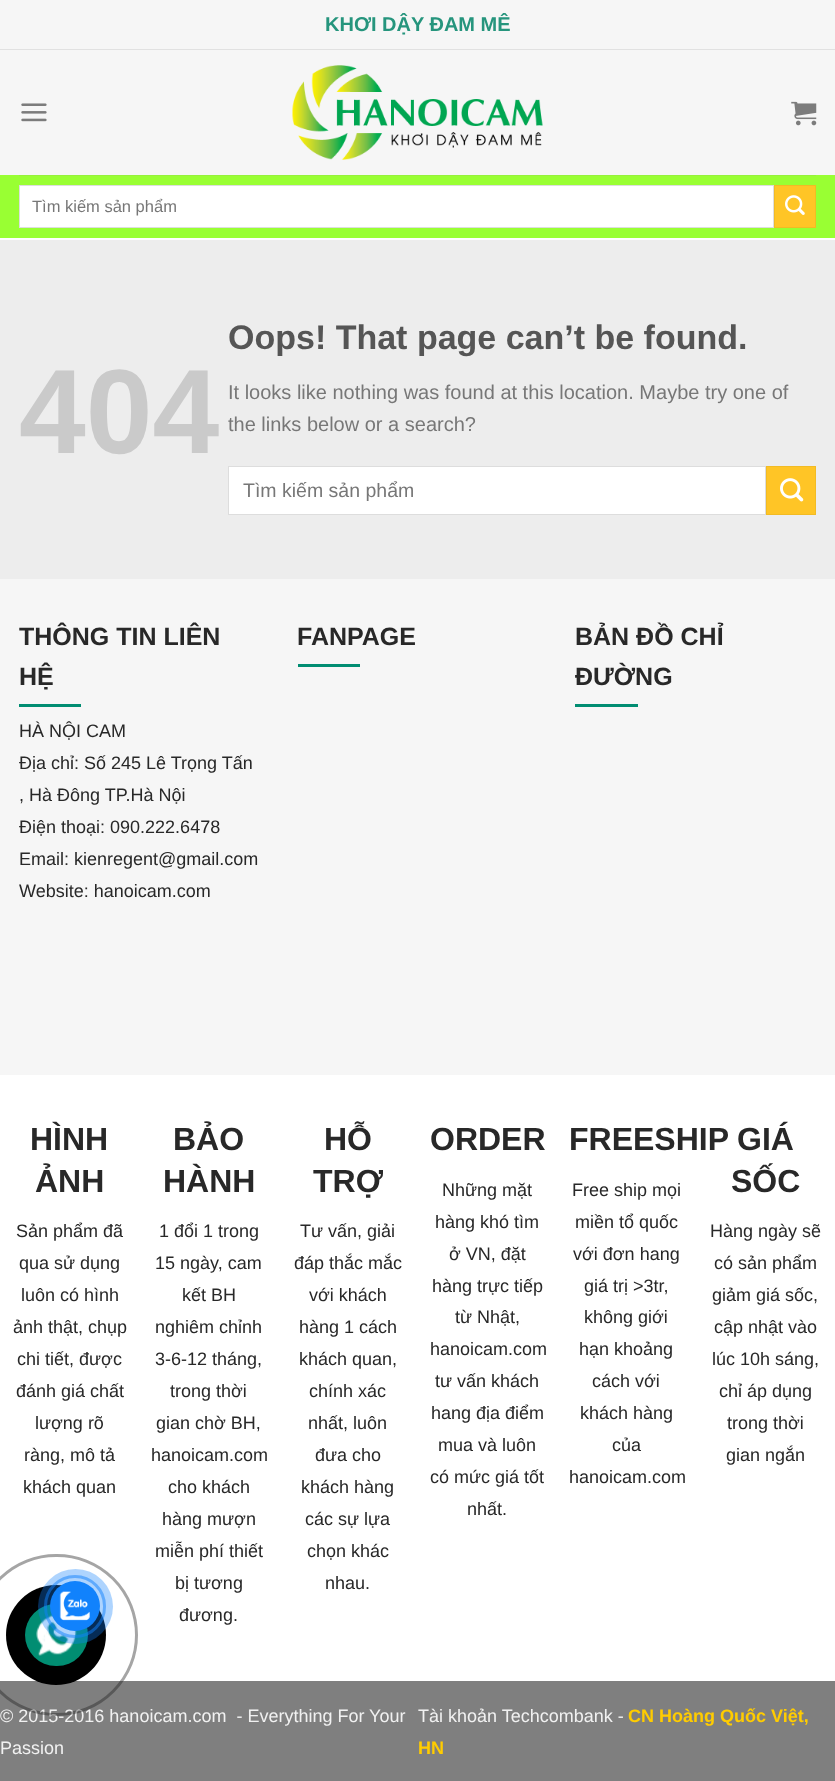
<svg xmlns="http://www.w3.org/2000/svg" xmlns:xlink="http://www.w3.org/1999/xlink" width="835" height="1781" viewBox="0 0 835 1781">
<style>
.cls-1{font:bold 20px Arimo;fill:#26957d}
.cls-2{font:16.5px Arimo;fill:#777777}
.cls-3{font:bold 120px Arimo;fill:#cacaca}
.cls-4{font:bold 34px Arimo;fill:#555555}
.cls-5{font:20px Arimo;fill:#777777}
.cls-6{font:19.5px Arimo;fill:#777777}
.cls-7{font:bold 25px Arimo;fill:#282828}
.cls-8{font:18px Arimo;fill:#282828}
.cls-9{font:bold 32px Arimo;fill:#282828}
.cls-10{font:18px Arimo;fill:#f1f1f1}
.cls-11{font:bold 18px Arimo;fill:#ffcc00}
</style>
<rect width="100%" height="100%" fill="#ffffff"/>
<rect fill="#f6f6f6" x="0" y="0" width="835" height="175"/>
<rect fill="#e1e1e1" x="0" y="49" width="835" height="1"/>
<image xlink:href="image0.png" x="21" y="103" width="26" height="19"/>
<image xlink:href="image1.png" x="292" y="65" width="251" height="95"/>
<image xlink:href="image2.png" x="791" y="101" width="26" height="25"/>
<rect fill="#99ff33" x="0" y="175" width="835" height="63"/>
<rect fill="#96f13a" x="19" y="175" width="797" height="1"/>
<rect fill="#ffffff" stroke="#dddddd" x="19.5" y="185.5" width="754" height="42"/>
<rect fill="#ffc526" stroke="#f2bb24" x="774.5" y="185.5" width="41" height="42"/>
<image xlink:href="image3.png" x="785" y="195" width="20" height="20"/>
<rect fill="#ededed" x="0" y="240" width="835" height="339"/>
<rect fill="#ffffff" stroke="#dddddd" x="228.5" y="466.5" width="537" height="48"/>
<rect fill="#ffc526" stroke="#f2bb24" x="766.5" y="466.5" width="49" height="48"/>
<image xlink:href="image4.png" x="780" y="478" width="24" height="24"/>
<rect fill="#f6f6f6" x="0" y="579" width="835" height="496"/>
<rect fill="#018d72" x="19" y="704" width="62" height="3"/>
<rect fill="#018d72" x="298" y="664" width="62" height="3"/>
<rect fill="#018d72" x="575" y="704" width="63" height="3"/>
<rect fill="#7f7f7f" x="0" y="1681" width="835" height="100"/>
<text class="cls-1" x="325" y="31">KHƠI DẬY ĐAM MÊ</text>
<text class="cls-2" x="32" y="212">Tìm kiếm sản phẩm</text>
<text class="cls-3" x="19" y="453">404</text>
<text class="cls-4" x="228" y="349">Oops! That page can’t be found.</text>
<text class="cls-5"><tspan x="228" y="399">It looks like nothing was found at this location. Maybe try one of</tspan><tspan x="228" y="431">the links below or a search?</tspan></text>
<text class="cls-6" x="243" y="497">Tìm kiếm sản phẩm</text>
<text class="cls-7"><tspan x="19" y="645">THÔNG TIN LIÊN</tspan><tspan x="19" y="685">HỆ</tspan></text>
<text class="cls-8"><tspan x="19" y="737">HÀ NỘI CAM</tspan><tspan x="19" y="769">Địa chỉ: Số 245 Lê Trọng Tấn</tspan><tspan x="19" y="801">, Hà Đông TP.Hà Nội</tspan><tspan x="19" y="833">Điện thoại: 090.222.6478</tspan><tspan x="19" y="865">Email: kienregent@gmail.com</tspan><tspan x="19" y="897">Website: hanoicam.com</tspan></text>
<text class="cls-7" x="297" y="645">FANPAGE</text>
<text class="cls-7"><tspan x="575" y="645">BẢN ĐỒ CHỈ</tspan><tspan x="575" y="685">ĐƯỜNG</tspan></text>
<text class="cls-9" x="30" y="1150">HÌNH</text>
<text class="cls-9" x="35" y="1192">ẢNH</text>
<text class="cls-8" x="16" y="1237">Sản phẩm đã</text>
<text class="cls-8" x="19" y="1269">qua sử dụng</text>
<text class="cls-8" x="21" y="1301">luôn có hình</text>
<text class="cls-8" x="13" y="1333">ảnh thật, chụp</text>
<text class="cls-8" x="17" y="1365">chi tiết, được</text>
<text class="cls-8" x="16" y="1397">đánh giá chất</text>
<text class="cls-8" x="35" y="1429">lượng rõ</text>
<text class="cls-8" x="24" y="1461">ràng, mô tả</text>
<text class="cls-8" x="23" y="1493">khách quan</text>
<text class="cls-9" x="173" y="1150">BẢO</text>
<text class="cls-9" x="163" y="1192">HÀNH</text>
<text class="cls-8" x="159" y="1237">1 đổi 1 trong</text>
<text class="cls-8" x="155" y="1269">15 ngày, cam</text>
<text class="cls-8" x="182" y="1301">kết BH</text>
<text class="cls-8"><tspan x="155" y="1333">nghiêm chỉnh</tspan><tspan x="155" y="1365">3-6-12 tháng,</tspan></text>
<text class="cls-8" x="170" y="1397">trong thời</text>
<text class="cls-8" x="156" y="1429">gian chờ BH,</text>
<text class="cls-8" x="151" y="1461">hanoicam.com</text>
<text class="cls-8" x="168" y="1493">cho khách</text>
<text class="cls-8" x="162" y="1525">hàng mượn</text>
<text class="cls-8" x="155" y="1557">miễn phí thiết</text>
<text class="cls-8" x="175" y="1589">bị tương</text>
<text class="cls-8" x="179" y="1621">đương.</text>
<text class="cls-9" x="324" y="1150">HỖ</text>
<text class="cls-9" x="313" y="1192">TRỢ</text>
<text class="cls-8" x="300" y="1237">Tư vấn, giải</text>
<text class="cls-8" x="294" y="1269">đáp thắc mắc</text>
<text class="cls-8" x="309" y="1301">với khách</text>
<text class="cls-8"><tspan x="299" y="1333">hàng 1 cách</tspan><tspan x="299" y="1365">khách quan,</tspan></text>
<text class="cls-8" x="309" y="1397">chính xác</text>
<text class="cls-8" x="308" y="1429">nhất, luôn</text>
<text class="cls-8" x="315" y="1461">đưa cho</text>
<text class="cls-8" x="301" y="1493">khách hàng</text>
<text class="cls-8" x="305" y="1525">các sự lựa</text>
<text class="cls-8" x="307" y="1557">chọn khác</text>
<text class="cls-8" x="325" y="1589">nhau.</text>
<text class="cls-9" x="430" y="1150">ORDER</text>
<text class="cls-8" x="442" y="1196">Những mặt</text>
<text class="cls-8" x="435" y="1228">hàng khó tìm</text>
<text class="cls-8" x="449" y="1260">ở VN, đặt</text>
<text class="cls-8" x="432" y="1292">hàng trực tiếp</text>
<text class="cls-8" x="455" y="1323">từ Nhật,</text>
<text class="cls-8" x="430" y="1355">hanoicam.com</text>
<text class="cls-8" x="435" y="1387">tư vấn khách</text>
<text class="cls-8" x="431" y="1419">hang địa điểm</text>
<text class="cls-8" x="438" y="1451">mua và luôn</text>
<text class="cls-8" x="430" y="1483">có mức giá tốt</text>
<text class="cls-8" x="467" y="1515">nhất.</text>
<text class="cls-9" x="569" y="1150">FREESHIP</text>
<text class="cls-8" x="572" y="1196">Free ship mọi</text>
<text class="cls-8" x="575" y="1228">miền tổ quốc</text>
<text class="cls-8" x="573" y="1260">với đơn hang</text>
<text class="cls-8"><tspan x="584" y="1292">giá trị &gt;3tr,</tspan><tspan x="584" y="1323">không giới</tspan></text>
<text class="cls-8" x="579" y="1355">hạn khoảng</text>
<text class="cls-8" x="592" y="1387">cách với</text>
<text class="cls-8" x="580" y="1419">khách hàng</text>
<text class="cls-8" x="612" y="1451">của</text>
<text class="cls-8" x="569" y="1483">hanoicam.com</text>
<text class="cls-9" x="737" y="1150">GIÁ</text>
<text class="cls-9" x="731" y="1192">SỐC</text>
<text class="cls-8" x="710" y="1237">Hàng ngày sẽ</text>
<text class="cls-8" x="714" y="1269">có sản phẩm</text>
<text class="cls-8" x="712" y="1301">giảm giá sốc,</text>
<text class="cls-8" x="714" y="1333">cập nhật vào</text>
<text class="cls-8" x="712" y="1365">lúc 10h sáng,</text>
<text class="cls-8" x="719" y="1397">chỉ áp dụng</text>
<text class="cls-8" x="727" y="1429">trong thời</text>
<text class="cls-8" x="726" y="1461">gian ngắn</text>
<text class="cls-10" xml:space="preserve"><tspan x="0" y="1722">© 2015-2016 hanoicam.com  - Everything For Your</tspan><tspan x="0" y="1754">Passion</tspan></text>
<text class="cls-10" x="418" y="1722">Tài khoản Techcombank -</text>
<text class="cls-11" x="628" y="1722">CN Hoàng Quốc Việt,</text>
<text class="cls-11" x="418" y="1754">HN</text>
<rect fill="none" stroke="#1e1e1e" stroke-opacity="0.4" stroke-width="3" x="-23.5" y="1555.5" width="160" height="159" rx="79.5"/>
<circle fill="#000000" cx="56" cy="1635" r="50"/>
<rect fill="#018d72" x="25" y="1604" width="63" height="62" rx="31"/>
<image xlink:href="image5.png" x="36" y="1614" width="41" height="42"/>
<rect fill="none" stroke="#1182fc" stroke-opacity="0.5" stroke-width="3" x="45.5" y="1576.5" width="59" height="60" rx="29.5"/>
<circle fill="#1182fc" fill-opacity="0.34" cx="75.5" cy="1606.5" r="37.5"/>
<circle fill="#1182fc" cx="75" cy="1606" r="25"/>
<image xlink:href="image6.png" x="59" y="1591" width="31" height="30"/>
</svg>
